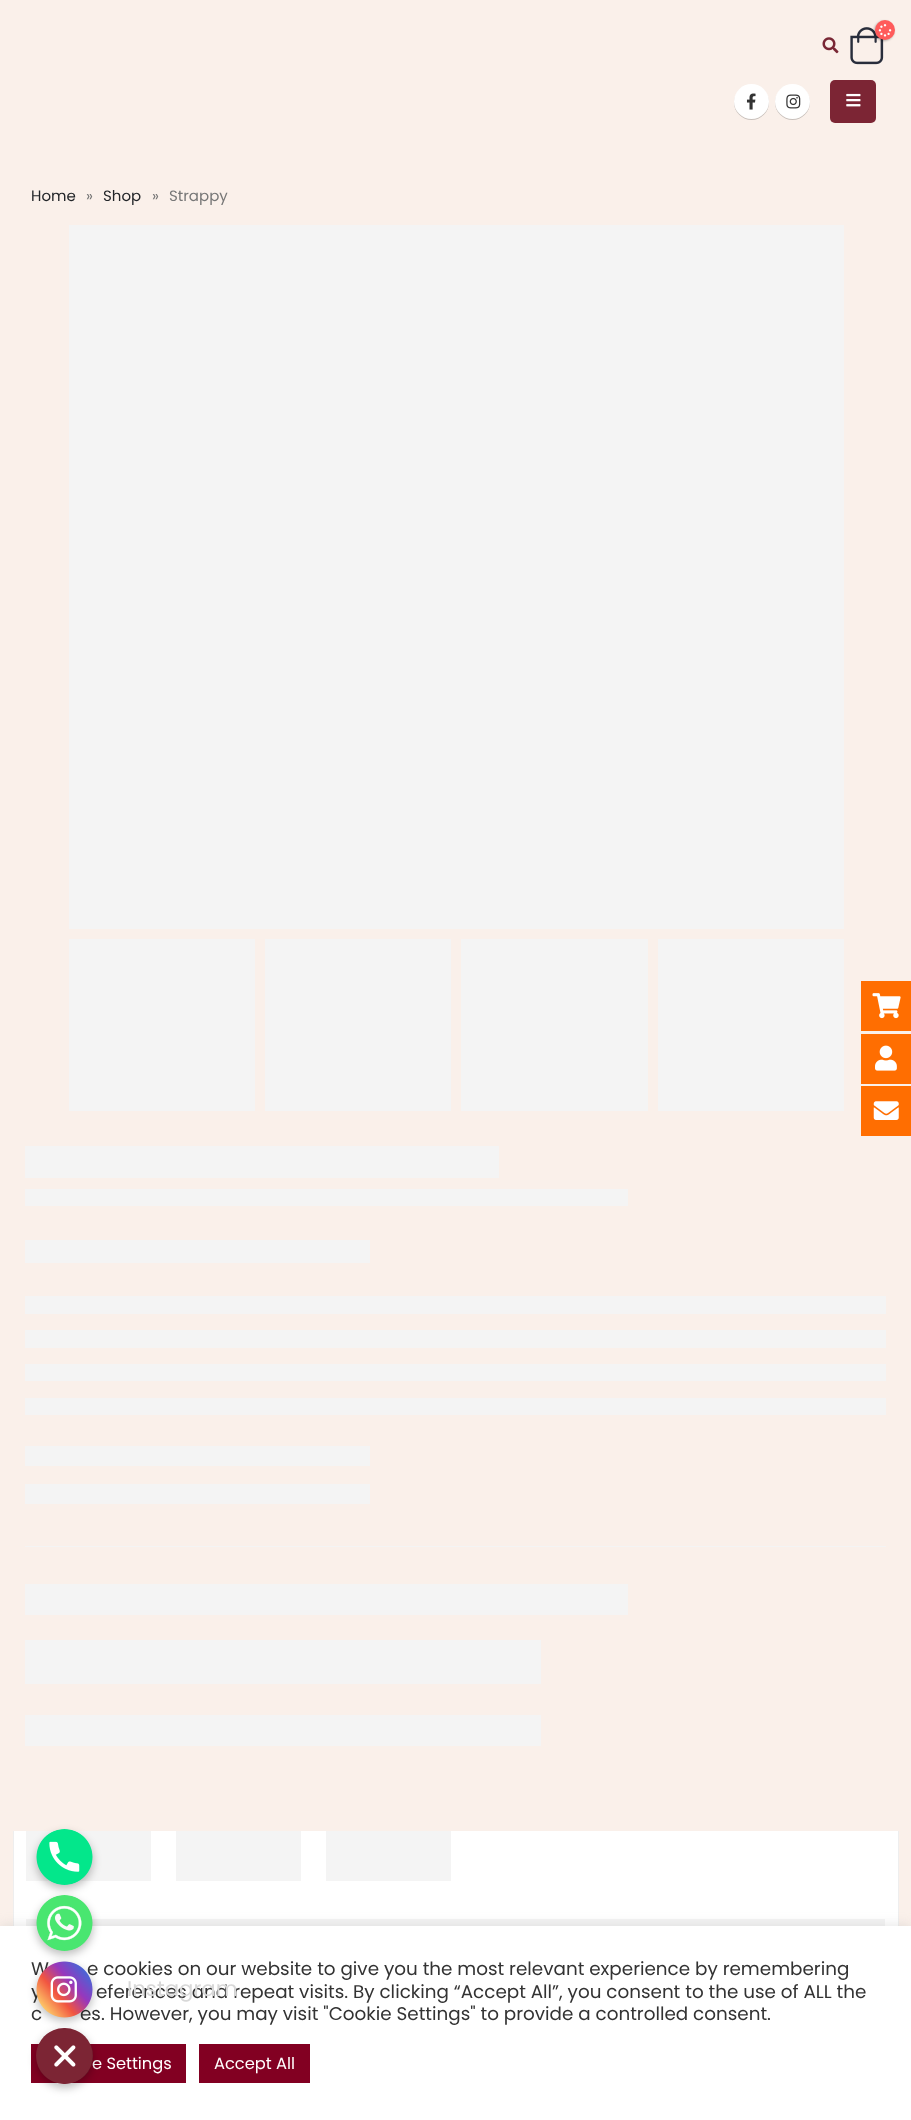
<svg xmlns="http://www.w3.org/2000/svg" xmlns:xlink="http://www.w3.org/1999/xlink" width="911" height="2120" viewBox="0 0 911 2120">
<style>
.cls-1{font:15px Poppins;fill:#222529}
.cls-2{font:15px Poppins;fill:#777777}
.cls-3{font:18.35px Poppins;fill:#333333}
.cls-4{font:16.25px Poppins;fill:#ffffff}
.cls-5{font:21.25px Poppins;fill:#d8d8d8}
</style>
<defs>
<clipPath id="clip1"><path d="M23 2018H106V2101H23ZM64.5 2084C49 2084 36 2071 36 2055.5C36 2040 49 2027.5 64.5 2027.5C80 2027.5 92.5 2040 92.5 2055.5C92.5 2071 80 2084 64.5 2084Z" clip-rule="evenodd"/></clipPath>
</defs>
<rect width="100%" height="100%" fill="#faf0ea"/>
<image xlink:href="image0.png" x="822" y="37" width="17" height="17"/>
<image xlink:href="image2.png" x="850" y="27" width="34" height="38"/>
<rect fill="#000000" fill-opacity="0.3" filter="blur(1px)" x="874" y="21" width="20" height="20" rx="10"/>
<circle fill="#ff5b5b" cx="885" cy="30" r="10"/>
<image xlink:href="image1.png" x="878" y="24" width="14" height="13"/>
<rect fill="#000000" fill-opacity="0.2" filter="blur(0.5px)" x="734" y="85" width="35" height="35" rx="17.5"/>
<circle fill="#ffffff" cx="751.5" cy="101.5" r="17.5"/>
<image xlink:href="image3.png" x="746" y="93" width="10" height="17"/>
<rect fill="#000000" fill-opacity="0.2" filter="blur(0.5px)" x="775" y="85" width="35" height="35" rx="17.5"/>
<circle fill="#ffffff" cx="792.5" cy="101.5" r="17.5"/>
<image xlink:href="image4.png" x="786" y="94" width="15" height="15"/>
<rect fill="#7c2534" x="830" y="80" width="46" height="43" rx="5"/>
<image xlink:href="image5.png" x="846" y="93" width="15" height="14"/>
<rect fill="#f4f4f4" x="658" y="939" width="186" height="172"/>
<rect fill="#f4f4f4" x="461" y="939" width="187" height="172"/>
<rect fill="#f4f4f4" x="265" y="939" width="186" height="172"/>
<rect fill="#f4f4f4" x="69" y="939" width="186" height="172"/>
<rect fill="#f4f4f4" x="69" y="225" width="775" height="704"/>
<rect fill="#f4f4f4" x="25" y="1715" width="516" height="31"/>
<rect fill="#f4f4f4" x="25" y="1640" width="516" height="44"/>
<rect fill="#f4f4f4" x="25" y="1584" width="603" height="31"/>
<rect fill="#f4f4f4" x="25" y="1546" width="861" height="1"/>
<rect fill="#f4f4f4" x="25" y="1484" width="345" height="20"/>
<rect fill="#f4f4f4" x="25" y="1446" width="345" height="20"/>
<rect fill="#f4f4f4" x="25" y="1398" width="861" height="17"/>
<rect fill="#f4f4f4" x="25" y="1364" width="861" height="17"/>
<rect fill="#f4f4f4" x="25" y="1330" width="861" height="18"/>
<rect fill="#f4f4f4" x="25" y="1296" width="861" height="18"/>
<rect fill="#f4f4f4" x="25" y="1240" width="345" height="23"/>
<rect fill="#f4f4f4" x="25" y="1189" width="603" height="17"/>
<rect fill="#f4f4f4" x="25" y="1146" width="474" height="32"/>
<rect fill="#ffffff" x="14" y="1831" width="884" height="95"/>
<rect fill="#eeeeee" x="898" y="1831" width="1" height="95"/>
<rect fill="#eeeeee" x="13" y="1831" width="1" height="95"/>
<rect fill="#f4f4f4" x="26" y="1919" width="859" height="7"/>
<rect fill="#f4f4f4" x="326" y="1831" width="125" height="50"/>
<rect fill="#f4f4f4" x="176" y="1831" width="125" height="50"/>
<rect fill="#f4f4f4" x="26" y="1831" width="125" height="50"/>
<rect fill="#ff6e01" x="861" y="981" width="50" height="50"/>
<image xlink:href="image6.png" x="872" y="993" width="29" height="26"/>
<rect fill="#ff6e01" x="861" y="1034" width="50" height="50"/>
<image xlink:href="image7.png" x="875" y="1045" width="22" height="26"/>
<rect fill="#ff6e01" x="861" y="1086" width="50" height="50"/>
<image xlink:href="image8.png" x="873" y="1101" width="26" height="19"/>
<rect fill="#acabab" fill-opacity="0.3" filter="blur(6px)" x="0" y="1925" width="911" height="194"/>
<rect fill="#ffffff" x="0" y="1926" width="911" height="194"/>
<rect fill="#820022" x="31" y="2044" width="155" height="39"/>
<rect fill="#820022" x="199" y="2044" width="111" height="39"/>
<rect fill="#000000" fill-opacity="0.25" filter="blur(4px)" x="36" y="1833" width="57" height="56" rx="28"/>
<image xlink:href="image9.png" x="36" y="1829" width="57" height="56"/>
<rect fill="#000000" fill-opacity="0.25" filter="blur(4px)" x="36" y="1899" width="57" height="56" rx="28"/>
<image xlink:href="image10.png" x="36" y="1895" width="57" height="56"/>
<text class="cls-1" x="31" y="201">Home</text>
<text class="cls-2" x="86" y="201">»</text>
<text class="cls-1" x="103" y="201">Shop</text>
<text class="cls-2" x="152" y="201">»</text>
<text class="cls-2" x="169" y="201">Strappy</text>
<text class="cls-3" x="31" y="1975">W</text>
<text class="cls-3" x="87" y="1975">e cookies on our website to give you the most relevant experience by remembering</text>
<text class="cls-3" x="31" y="1998">y</text>
<text class="cls-3" x="96" y="1998">eferences and repeat visits. By clicking “Accept All”, you consent to the use of ALL the</text>
<text class="cls-3" x="31" y="2020">c</text>
<text class="cls-3" x="80" y="2020">es. However, you may visit "Cookie Settings" to provide a controlled consent.</text>
<text class="cls-4" x="92" y="2069">e Settings</text>
<text class="cls-4" x="214" y="2069">Accept All</text>
<text class="cls-5" x="127" y="1996">Instagram</text>
<rect fill="#7c2534" x="36" y="2028" width="57" height="56" rx="28"/>
<rect fill="#000000" fill-opacity="0.25" filter="blur(4px)" x="36" y="1965" width="57" height="56" rx="28"/>
<image xlink:href="image11.png" x="36" y="1961" width="57" height="57"/>
<g clip-path="url(#clip1)">
<rect fill="#000000" fill-opacity="0.25" filter="blur(4px)" x="36" y="2031" width="57" height="57" rx="28.5"/>
</g>
<image xlink:href="image12.png" x="54" y="2045" width="37" height="39"/>
</svg>
